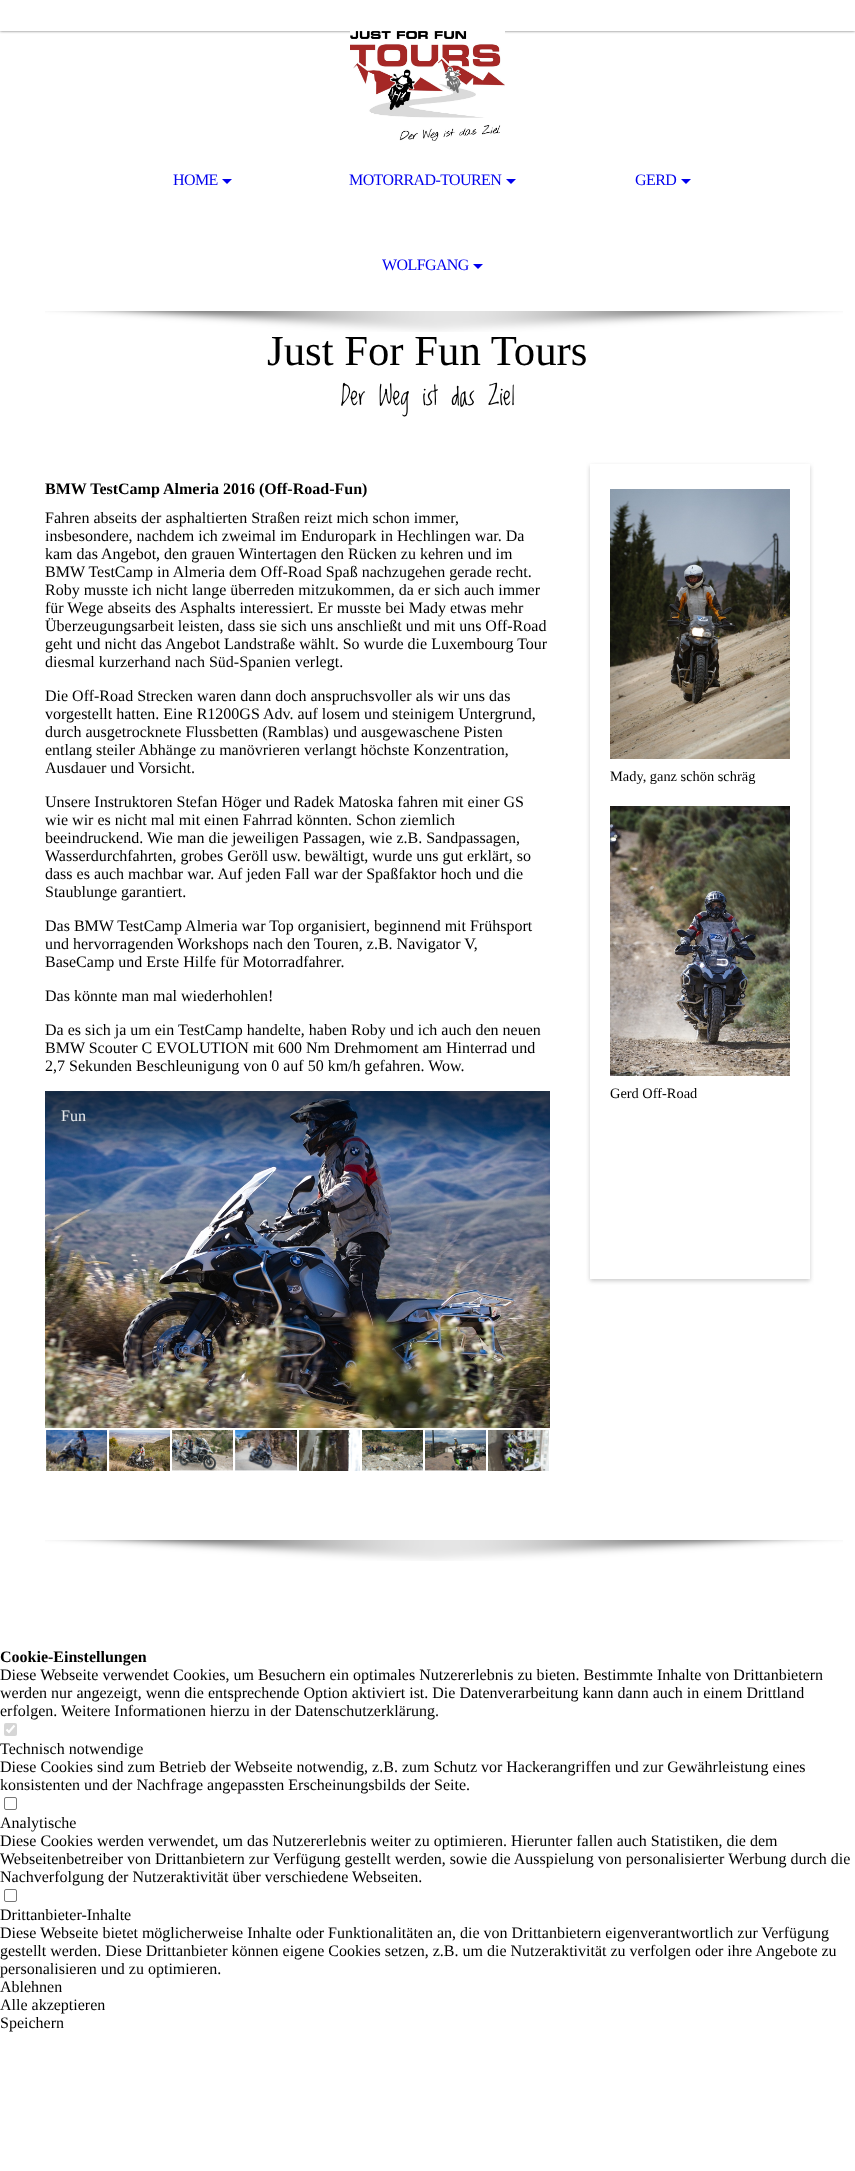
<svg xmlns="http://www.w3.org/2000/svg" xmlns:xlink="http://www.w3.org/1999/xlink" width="855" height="2171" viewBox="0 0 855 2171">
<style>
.cls-1{font:16px Liberation Serif;letter-spacing:-0.6px;fill:#0000ee}
.cls-2{font:42.75px Liberation Serif;fill:#000000}
.cls-3{font:25.75px Loved by the King;fill:#000000}
.cls-4{font:bold 16px Liberation Serif;fill:#000000}
.cls-5{font:16px Liberation Serif;fill:#000000}
.cls-6{font:16px Liberation Serif;fill:#eaecef}
.cls-7{font:14.4px Liberation Serif;fill:#000000}
</style>
<defs>
<clipPath id="clip1"><rect x="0" y="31" width="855" height="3"/></clipPath>
<clipPath id="clip2"><path d="M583 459H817V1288H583ZM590 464H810V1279H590Z" clip-rule="evenodd"/></clipPath>
</defs>
<rect width="100%" height="100%" fill="#ffffff"/>
<g clip-path="url(#clip1)">
<rect fill="#666666" filter="blur(1.5px)" x="0" y="0" width="855" height="31"/>
</g>
<image xlink:href="image0.png" x="350" y="31" width="155" height="110"/>
<path fill="#0000ee" d="M222 179H232L227 184Z"/>
<path fill="#0000ee" d="M506 179H516L511 184Z"/>
<path fill="#0000ee" d="M681 179H691L686 184Z"/>
<path fill="#0000ee" d="M473 264H483L478 269Z"/>
<image xlink:href="image1.png" x="45" y="311" width="798" height="21"/>
<image xlink:href="image2.png" x="45" y="1091" width="505" height="337"/>
<image xlink:href="image3.png" x="46" y="1430" width="61" height="41"/>
<image xlink:href="image4.png" x="109" y="1430" width="61" height="41"/>
<image xlink:href="image5.png" x="172" y="1430" width="61" height="41"/>
<image xlink:href="image6.png" x="235" y="1430" width="62" height="41"/>
<image xlink:href="image7.png" x="299" y="1430" width="61" height="41"/>
<image xlink:href="image8.png" x="362" y="1430" width="61" height="41"/>
<image xlink:href="image9.png" x="425" y="1430" width="61" height="41"/>
<image xlink:href="image10.png" x="488" y="1430" width="61" height="41"/>
<g clip-path="url(#clip2)">
<rect fill="#cccccc" filter="blur(2px)" x="590" y="466" width="220" height="815"/>
</g>
<image xlink:href="image11.png" x="610" y="489" width="180" height="270"/>
<image xlink:href="image12.png" x="610" y="806" width="180" height="270"/>
<image xlink:href="image1.png" x="45" y="1540" width="798" height="21"/>
<rect fill="#d6d6d6" x="4" y="1723" width="13" height="13" rx="2"/>
<path fill="none" stroke="#ffffff" stroke-width="2.1" d="M6.5 1729.5L9 1732L14.5 1725.5"/>
<rect fill="none" stroke="#767676" x="4.5" y="1797.5" width="12" height="12" rx="1.5"/>
<rect fill="none" stroke="#767676" x="4.5" y="1889.5" width="12" height="12" rx="1.5"/>
<text class="cls-1" x="173" y="185">HOME</text>
<text class="cls-1" x="349" y="185">MOTORRAD-TOUREN</text>
<text class="cls-1" x="635" y="185">GERD</text>
<text class="cls-1" x="382" y="270">WOLFGANG</text>
<text class="cls-2" x="267" y="365">Just For Fun Tours</text>
<text class="cls-3" x="341" y="405">Der Weg ist das Ziel</text>
<text class="cls-4" x="45" y="494">BMW TestCamp Almeria 2016 (Off-Road-Fun)</text>
<text class="cls-5"><tspan x="45" y="523">Fahren abseits der asphaltierten Straßen reizt mich schon immer,</tspan><tspan x="45" y="541">insbesondere, nachdem ich zweimal im Enduropark in Hechlingen war. Da</tspan><tspan x="45" y="559">kam das Angebot, den grauen Wintertagen den Rücken zu kehren und im</tspan><tspan x="45" y="577">BMW TestCamp in Almeria dem Off-Road Spaß nachzugehen gerade recht.</tspan><tspan x="45" y="595">Roby musste ich nicht lange überreden mitzukommen, da er sich auch immer</tspan><tspan x="45" y="613">für Wege abseits des Asphalts interessiert. Er musste bei Mady etwas mehr</tspan><tspan x="45" y="631">Überzeugungsarbeit leisten, dass sie sich uns anschließt und mit uns Off-Road</tspan><tspan x="45" y="649">geht und nicht das Angebot Landstraße wählt. So wurde die Luxembourg Tour</tspan><tspan x="45" y="667">diesmal kurzerhand nach Süd-Spanien verlegt.</tspan></text>
<text class="cls-5"><tspan x="45" y="701">Die Off-Road Strecken waren dann doch anspruchsvoller als wir uns das</tspan><tspan x="45" y="719">vorgestellt hatten. Eine R1200GS Adv. auf losem und steinigem Untergrund,</tspan><tspan x="45" y="737">durch ausgetrocknete Flussbetten (Ramblas) und ausgewaschene Pisten</tspan><tspan x="45" y="755">entlang steiler Abhänge zu manövrieren verlangt höchste Konzentration,</tspan><tspan x="45" y="773">Ausdauer und Vorsicht.</tspan></text>
<text class="cls-5"><tspan x="45" y="807">Unsere Instruktoren Stefan Höger und Radek Matoska fahren mit einer GS</tspan><tspan x="45" y="825">wie wir es nicht mal mit einen Fahrrad könnten. Schon ziemlich</tspan><tspan x="45" y="843">beeindruckend. Wie man die jeweiligen Passagen, wie z.B. Sandpassagen,</tspan><tspan x="45" y="861">Wasserdurchfahrten, grobes Geröll usw. bewältigt, wurde uns gut erklärt, so</tspan><tspan x="45" y="879">dass es auch machbar war. Auf jeden Fall war der Spaßfaktor hoch und die</tspan><tspan x="45" y="897">Staublunge garantiert.</tspan></text>
<text class="cls-5"><tspan x="45" y="931">Das BMW TestCamp Almeria war Top organisiert, beginnend mit Frühsport</tspan><tspan x="45" y="949">und hervorragenden Workshops nach den Touren, z.B. Navigator V,</tspan><tspan x="45" y="967">BaseCamp und Erste Hilfe für Motorradfahrer.</tspan></text>
<text class="cls-5" x="45" y="1001">Das könnte man mal wiederhohlen!</text>
<text class="cls-5"><tspan x="45" y="1035">Da es sich ja um ein TestCamp handelte, haben Roby und ich auch den neuen</tspan><tspan x="45" y="1053">BMW Scouter C EVOLUTION mit 600 Nm Drehmoment am Hinterrad und</tspan><tspan x="45" y="1071">2,7 Sekunden Beschleunigung von 0 auf 50 km/h gefahren. Wow.</tspan></text>
<text class="cls-6" x="61" y="1121">Fun</text>
<text class="cls-7" x="610" y="781">Mady, ganz schön schräg</text>
<text class="cls-7" x="610" y="1098">Gerd Off-Road</text>
<text class="cls-4" x="0" y="1662">Cookie-Einstellungen</text>
<text class="cls-5"><tspan x="0" y="1680">Diese Webseite verwendet Cookies, um Besuchern ein optimales Nutzererlebnis zu bieten. Bestimmte Inhalte von Drittanbietern</tspan><tspan x="0" y="1698">werden nur angezeigt, wenn die entsprechende Option aktiviert ist. Die Datenverarbeitung kann dann auch in einem Drittland</tspan><tspan x="0" y="1716">erfolgen. Weitere Informationen hierzu in der Datenschutzerklärung.</tspan></text>
<text class="cls-5"><tspan x="0" y="1754">Technisch notwendige</tspan><tspan x="0" y="1772">Diese Cookies sind zum Betrieb der Webseite notwendig, z.B. zum Schutz vor Hackerangriffen und zur Gewährleistung eines</tspan><tspan x="0" y="1790">konsistenten und der Nachfrage angepassten Erscheinungsbilds der Seite.</tspan></text>
<text class="cls-5"><tspan x="0" y="1828">Analytische</tspan><tspan x="0" y="1846">Diese Cookies werden verwendet, um das Nutzererlebnis weiter zu optimieren. Hierunter fallen auch Statistiken, die dem</tspan><tspan x="0" y="1864">Webseitenbetreiber von Drittanbietern zur Verfügung gestellt werden, sowie die Ausspielung von personalisierter Werbung durch die</tspan><tspan x="0" y="1882">Nachverfolgung der Nutzeraktivität über verschiedene Webseiten.</tspan></text>
<text class="cls-5"><tspan x="0" y="1920">Drittanbieter-Inhalte</tspan><tspan x="0" y="1938">Diese Webseite bietet möglicherweise Inhalte oder Funktionalitäten an, die von Drittanbietern eigenverantwortlich zur Verfügung</tspan><tspan x="0" y="1956">gestellt werden. Diese Drittanbieter können eigene Cookies setzen, z.B. um die Nutzeraktivität zu verfolgen oder ihre Angebote zu</tspan><tspan x="0" y="1974">personalisieren und zu optimieren.</tspan><tspan x="0" y="1992">Ablehnen</tspan><tspan x="0" y="2010">Alle akzeptieren</tspan><tspan x="0" y="2028">Speichern</tspan></text>
</svg>
